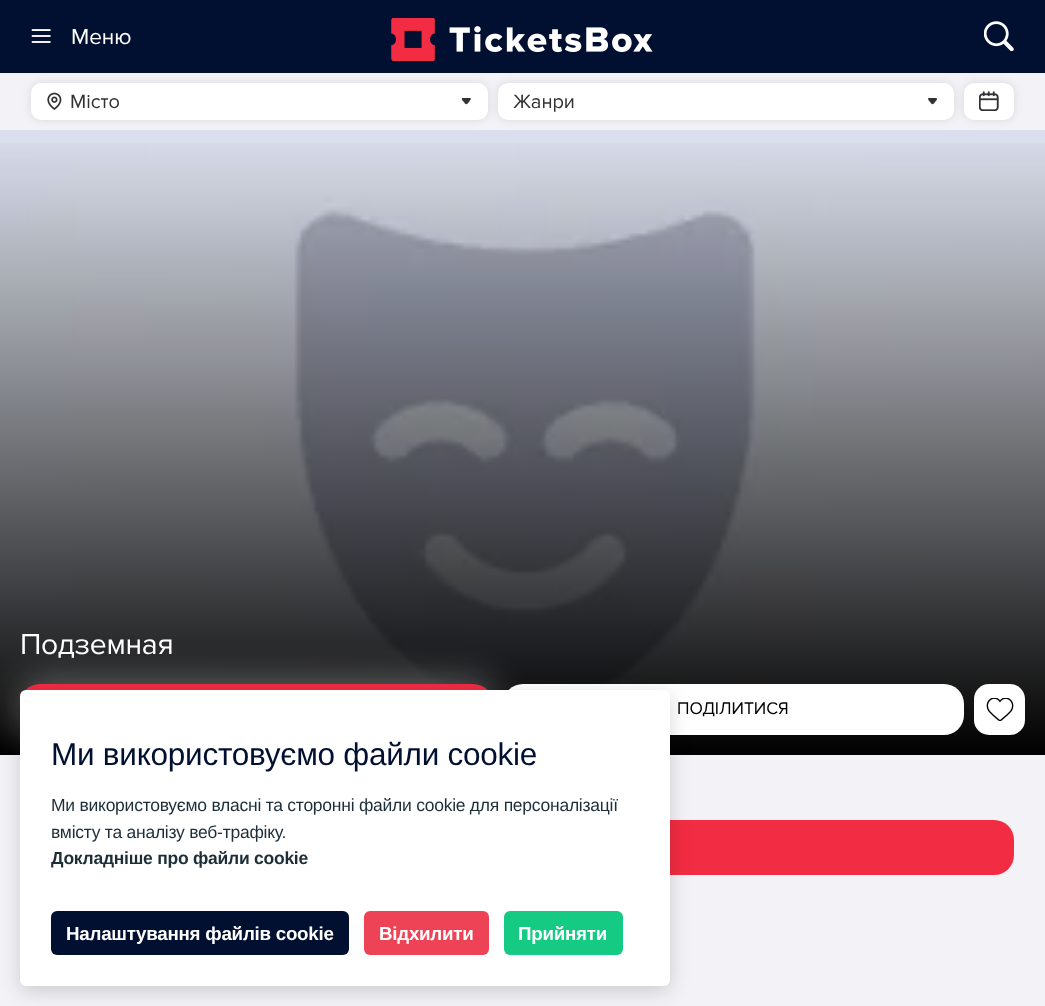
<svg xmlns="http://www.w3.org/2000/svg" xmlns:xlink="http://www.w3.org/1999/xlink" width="1045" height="1006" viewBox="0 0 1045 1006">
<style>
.cls-1{font:22.5px Proxima Nova;fill:#ffffff}
.cls-2{font:20px Proxima Nova;fill:#323234}
.cls-3{font:30px Proxima Nova;letter-spacing:-0.25px;fill:#ffffff}
.cls-4{font:17.5px Proxima Nova;fill:#000000}
.cls-5{font:31.5px Liberation Sans;letter-spacing:-0.25px;fill:#011031}
.cls-6{font:17.5px Liberation Sans;letter-spacing:-0.25px;fill:#1d2e38}
.cls-7{font:bold 17.5px Liberation Sans;letter-spacing:-0.25px;fill:#1d2e38}
.cls-8{font:bold 18.75px Liberation Sans;letter-spacing:-0.25px;fill:#ffffff}
</style>
<defs>
<linearGradient id="g1" gradientUnits="userSpaceOnUse" x1="522" y1="130" x2="523" y2="755"><stop offset="0" stop-color="#000000" stop-opacity="0"/><stop offset="1" stop-color="#000000"/></linearGradient>
</defs>
<rect width="100%" height="100%" fill="#f2f2f7"/>
<image xlink:href="image7.png" x="0" y="130" width="1045" height="587"/>
<rect fill="#000000" fill-opacity="0.1" filter="blur(5px)" x="31" y="83" width="457" height="37" rx="10"/>
<rect fill="#ffffff" x="31" y="83" width="457" height="37" rx="10"/>
<rect fill="#000000" fill-opacity="0.1" filter="blur(5px)" x="498" y="83" width="456" height="37" rx="10"/>
<rect fill="#ffffff" x="498" y="83" width="456" height="37" rx="10"/>
<rect fill="#000000" fill-opacity="0.1" filter="blur(5px)" x="964" y="83" width="50" height="37" rx="10"/>
<rect fill="#011031" x="0" y="0" width="1045" height="73"/>
<image xlink:href="image0.png" x="31" y="29" width="20" height="14"/>
<image xlink:href="image1.png" x="984" y="21" width="30" height="30"/>
<image xlink:href="image2.png" x="391" y="18" width="262" height="43"/>
<image xlink:href="image3.png" x="47" y="92" width="15" height="18"/>
<image xlink:href="image4.png" x="461" y="98" width="10" height="7"/>
<image xlink:href="image5.png" x="928" y="98" width="9" height="7"/>
<rect fill="#ffffff" x="964" y="83" width="50" height="37" rx="10"/>
<image xlink:href="image6.png" x="979" y="91" width="20" height="20"/>
<rect fill="url(#g1)" x="0" y="143" width="1045" height="612"/>
<rect fill="#ffffff" fill-opacity="0.4" filter="blur(20px)" x="20" y="684" width="473" height="51" rx="20"/>
<rect fill="#f22c43" x="20" y="684" width="473" height="51" rx="20"/>
<rect fill="#ffffff" x="503" y="684" width="461" height="51" rx="20"/>
<rect fill="#ffffff" x="974" y="684" width="51" height="51" rx="15"/>
<image xlink:href="image8.png" x="986" y="698" width="28" height="23"/>
<rect fill="#f22c43" x="31" y="820" width="983" height="55" rx="20"/>
<rect fill="#000000" fill-opacity="0.16" filter="blur(10px)" x="20" y="695" width="650" height="296" rx="6"/>
<rect fill="#ffffff" x="20" y="690" width="650" height="296" rx="6"/>
<rect fill="#011031" x="51" y="911" width="298" height="44" rx="6"/>
<rect fill="#ee4256" x="364" y="911" width="125" height="44" rx="6"/>
<rect fill="#15cb84" x="504" y="911" width="119" height="44" rx="6"/>
<text class="cls-1" x="71" y="44">Меню</text>
<text class="cls-2" x="70" y="108">Місто</text>
<text class="cls-2" x="513" y="108">Жанри</text>
<text class="cls-3" x="20" y="654">Подземная</text>
<text class="cls-4" x="677" y="714">ПОДІЛИТИСЯ</text>
<text class="cls-5" x="51" y="765">Ми використовуємо файли cookie</text>
<text class="cls-6"><tspan x="51" y="811">Ми використовуємо власні та сторонні файли cookie для персоналізації</tspan><tspan x="51" y="838">вмісту та аналізу веб-трафіку.</tspan></text>
<text class="cls-7" x="51" y="864">Докладніше про файли cookie</text>
<text class="cls-8" x="66" y="940">Налаштування файлів cookie</text>
<text class="cls-8" x="379" y="940">Відхилити</text>
<text class="cls-8" x="518" y="940">Прийняти</text>
</svg>
